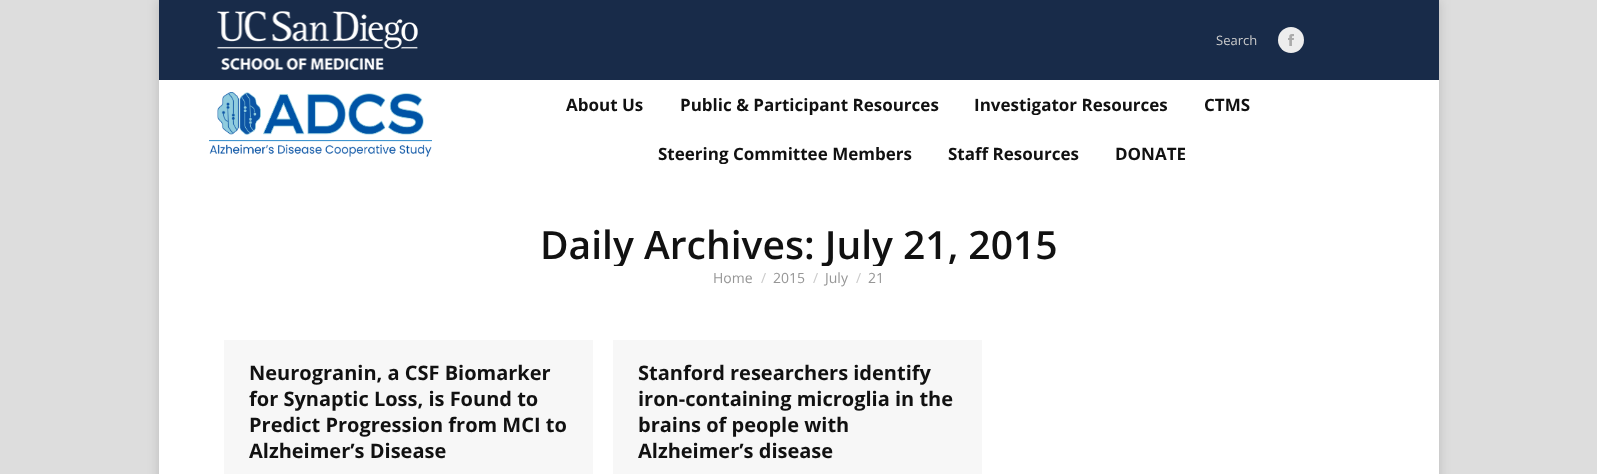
<svg xmlns="http://www.w3.org/2000/svg" xmlns:xlink="http://www.w3.org/1999/xlink" width="1597" height="474" viewBox="0 0 1597 474">
<style>
.cls-1{font:13px Open Sans;fill:#cbcbcb}
.cls-2{font:bold 17px Open Sans;fill:#111111}
.cls-3{font:600 39px Open Sans;fill:#111111}
.cls-4{font:14px Open Sans;fill:#969696}
.cls-5{font:14px Open Sans;fill:#cbcbcb}
.cls-6{font:bold 20px Open Sans;fill:#111111}
</style>
<defs>
<clipPath id="clip1"><rect x="540" y="222" width="517" height="44"/></clipPath>
</defs>
<rect width="100%" height="100%" fill="#dddddd"/>
<rect fill="#000000" fill-opacity="0.15" filter="blur(6px)" x="159" y="0" width="1280" height="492"/>
<rect fill="#ffffff" x="159" y="80" width="1280" height="394"/>
<rect fill="#182b49" x="159" y="0" width="1280" height="80"/>
<image xlink:href="image0.png" x="217" y="11" width="201" height="59"/>
<circle fill="#ededed" cx="1291" cy="40" r="13"/>
<image xlink:href="image1.png" x="1288" y="34" width="6" height="12"/>
<image xlink:href="image2.png" x="209" y="92" width="223" height="65"/>
<rect fill="#f7f7f7" x="224" y="340" width="369" height="134"/>
<rect fill="#f7f7f7" x="613" y="340" width="369" height="134"/>
<text class="cls-1" x="1216" y="45">Search</text>
<text class="cls-2" x="566" y="111">About Us</text>
<text class="cls-2" x="680" y="111">Public &amp; Participant Resources</text>
<text class="cls-2" x="974" y="111">Investigator Resources</text>
<text class="cls-2" x="1204" y="111">CTMS</text>
<text class="cls-2" x="658" y="160">Steering Committee Members</text>
<text class="cls-2" x="948" y="160">Staff Resources</text>
<text class="cls-2" x="1115" y="160">DONATE</text>
<g clip-path="url(#clip1)">
<text class="cls-3" x="540" y="259">Daily Archives: July 21, 2015</text>
</g>
<text class="cls-4" x="713" y="283">Home</text>
<text class="cls-5" x="761" y="283">/</text>
<text class="cls-4" x="773" y="283">2015</text>
<text class="cls-5" x="813" y="283">/</text>
<text class="cls-4" x="825" y="283">July</text>
<text class="cls-5" x="856" y="283">/</text>
<text class="cls-4" x="868" y="283">21</text>
<text class="cls-6"><tspan x="249" y="380">Neurogranin, a CSF Biomarker</tspan><tspan x="249" y="406">for Synaptic Loss, is Found to</tspan><tspan x="249" y="432">Predict Progression from MCI to</tspan><tspan x="249" y="458">Alzheimer’s Disease</tspan></text>
<text class="cls-6"><tspan x="638" y="380">Stanford researchers identify</tspan><tspan x="638" y="406">iron-containing microglia in the</tspan><tspan x="638" y="432">brains of people with</tspan><tspan x="638" y="458">Alzheimer’s disease</tspan></text>
</svg>
